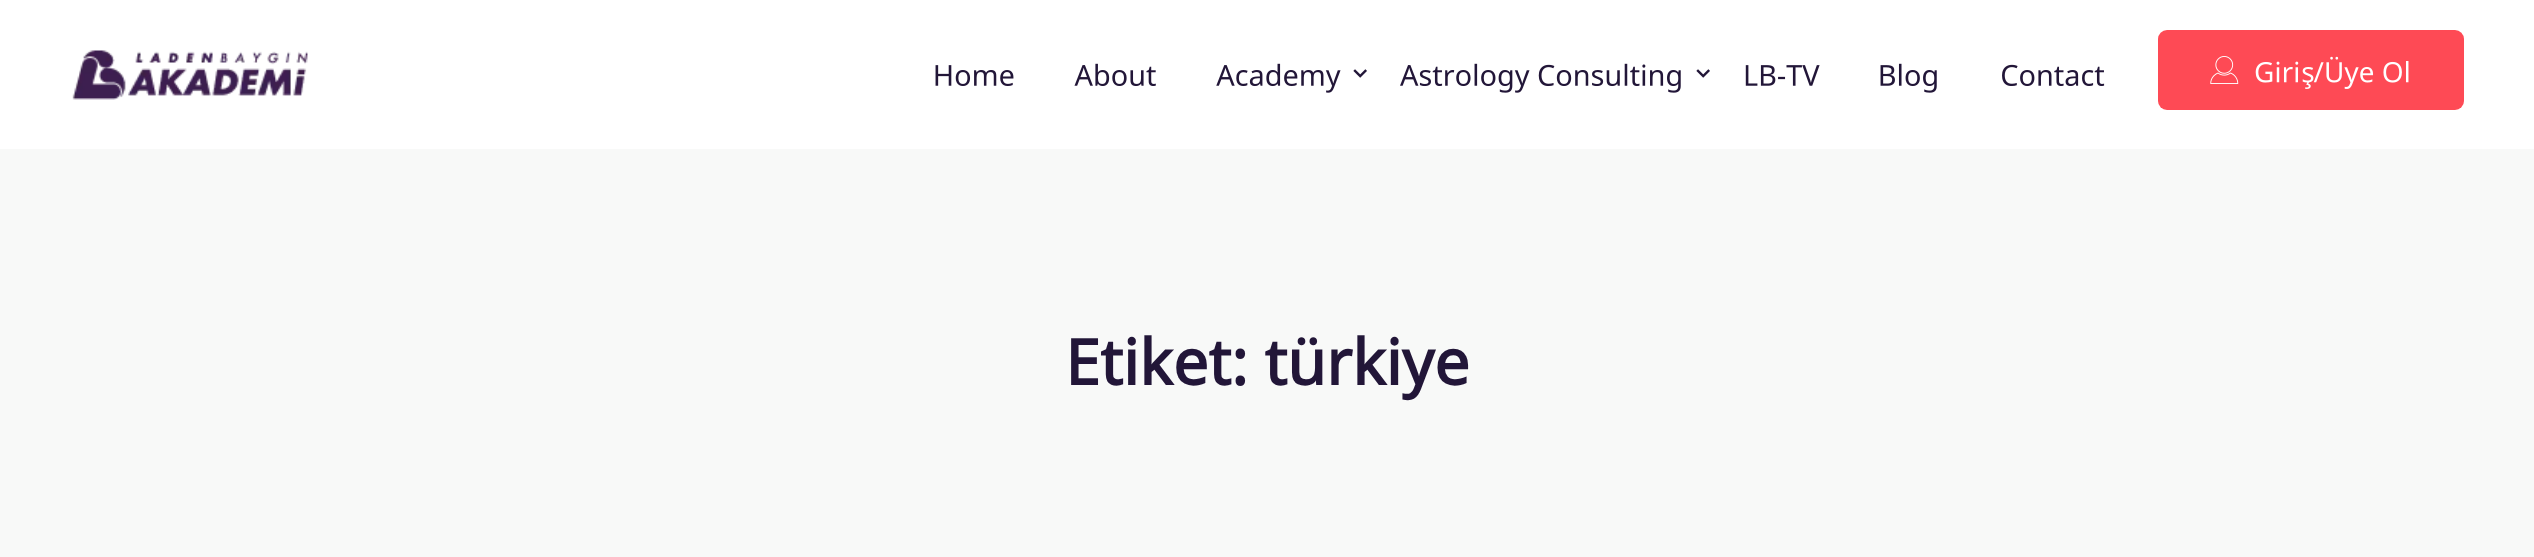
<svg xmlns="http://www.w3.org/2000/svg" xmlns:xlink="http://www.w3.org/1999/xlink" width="2534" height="557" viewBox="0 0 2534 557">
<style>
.cls-1{font:bold 63px Noto Sans;fill:#221638}
</style>
<rect width="100%" height="100%" fill="#ffffff"/>
<image xlink:href="image0.png" x="72" y="50" width="236" height="50"/>
<image xlink:href="image1.png" x="935" y="65" width="79" height="21"/>
<image xlink:href="image2.png" x="1074" y="63" width="82" height="23"/>
<image xlink:href="image3.png" x="1216" y="63" width="125" height="30"/>
<image xlink:href="image4.png" x="1353" y="69" width="14" height="9"/>
<image xlink:href="image5.png" x="1400" y="63" width="281" height="30"/>
<image xlink:href="image4.png" x="1696" y="69" width="14" height="9"/>
<image xlink:href="image6.png" x="1745" y="65" width="75" height="21"/>
<image xlink:href="image7.png" x="1880" y="63" width="57" height="30"/>
<image xlink:href="image8.png" x="2002" y="64" width="103" height="22"/>
<rect fill="#fe4a55" x="2158" y="30" width="306" height="80" rx="9"/>
<image xlink:href="image9.png" x="2210" y="56" width="29" height="28"/>
<image xlink:href="image10.png" x="2255" y="61" width="44" height="22"/>
<image xlink:href="image11.png" x="2302" y="67" width="12" height="22"/>
<image xlink:href="image12.png" x="2313" y="56" width="96" height="33"/>
<rect fill="#f8f9f8" x="0" y="149" width="2534" height="408"/>
<text class="cls-1" x="1065" y="385">Etiket: türkiye</text>
</svg>
